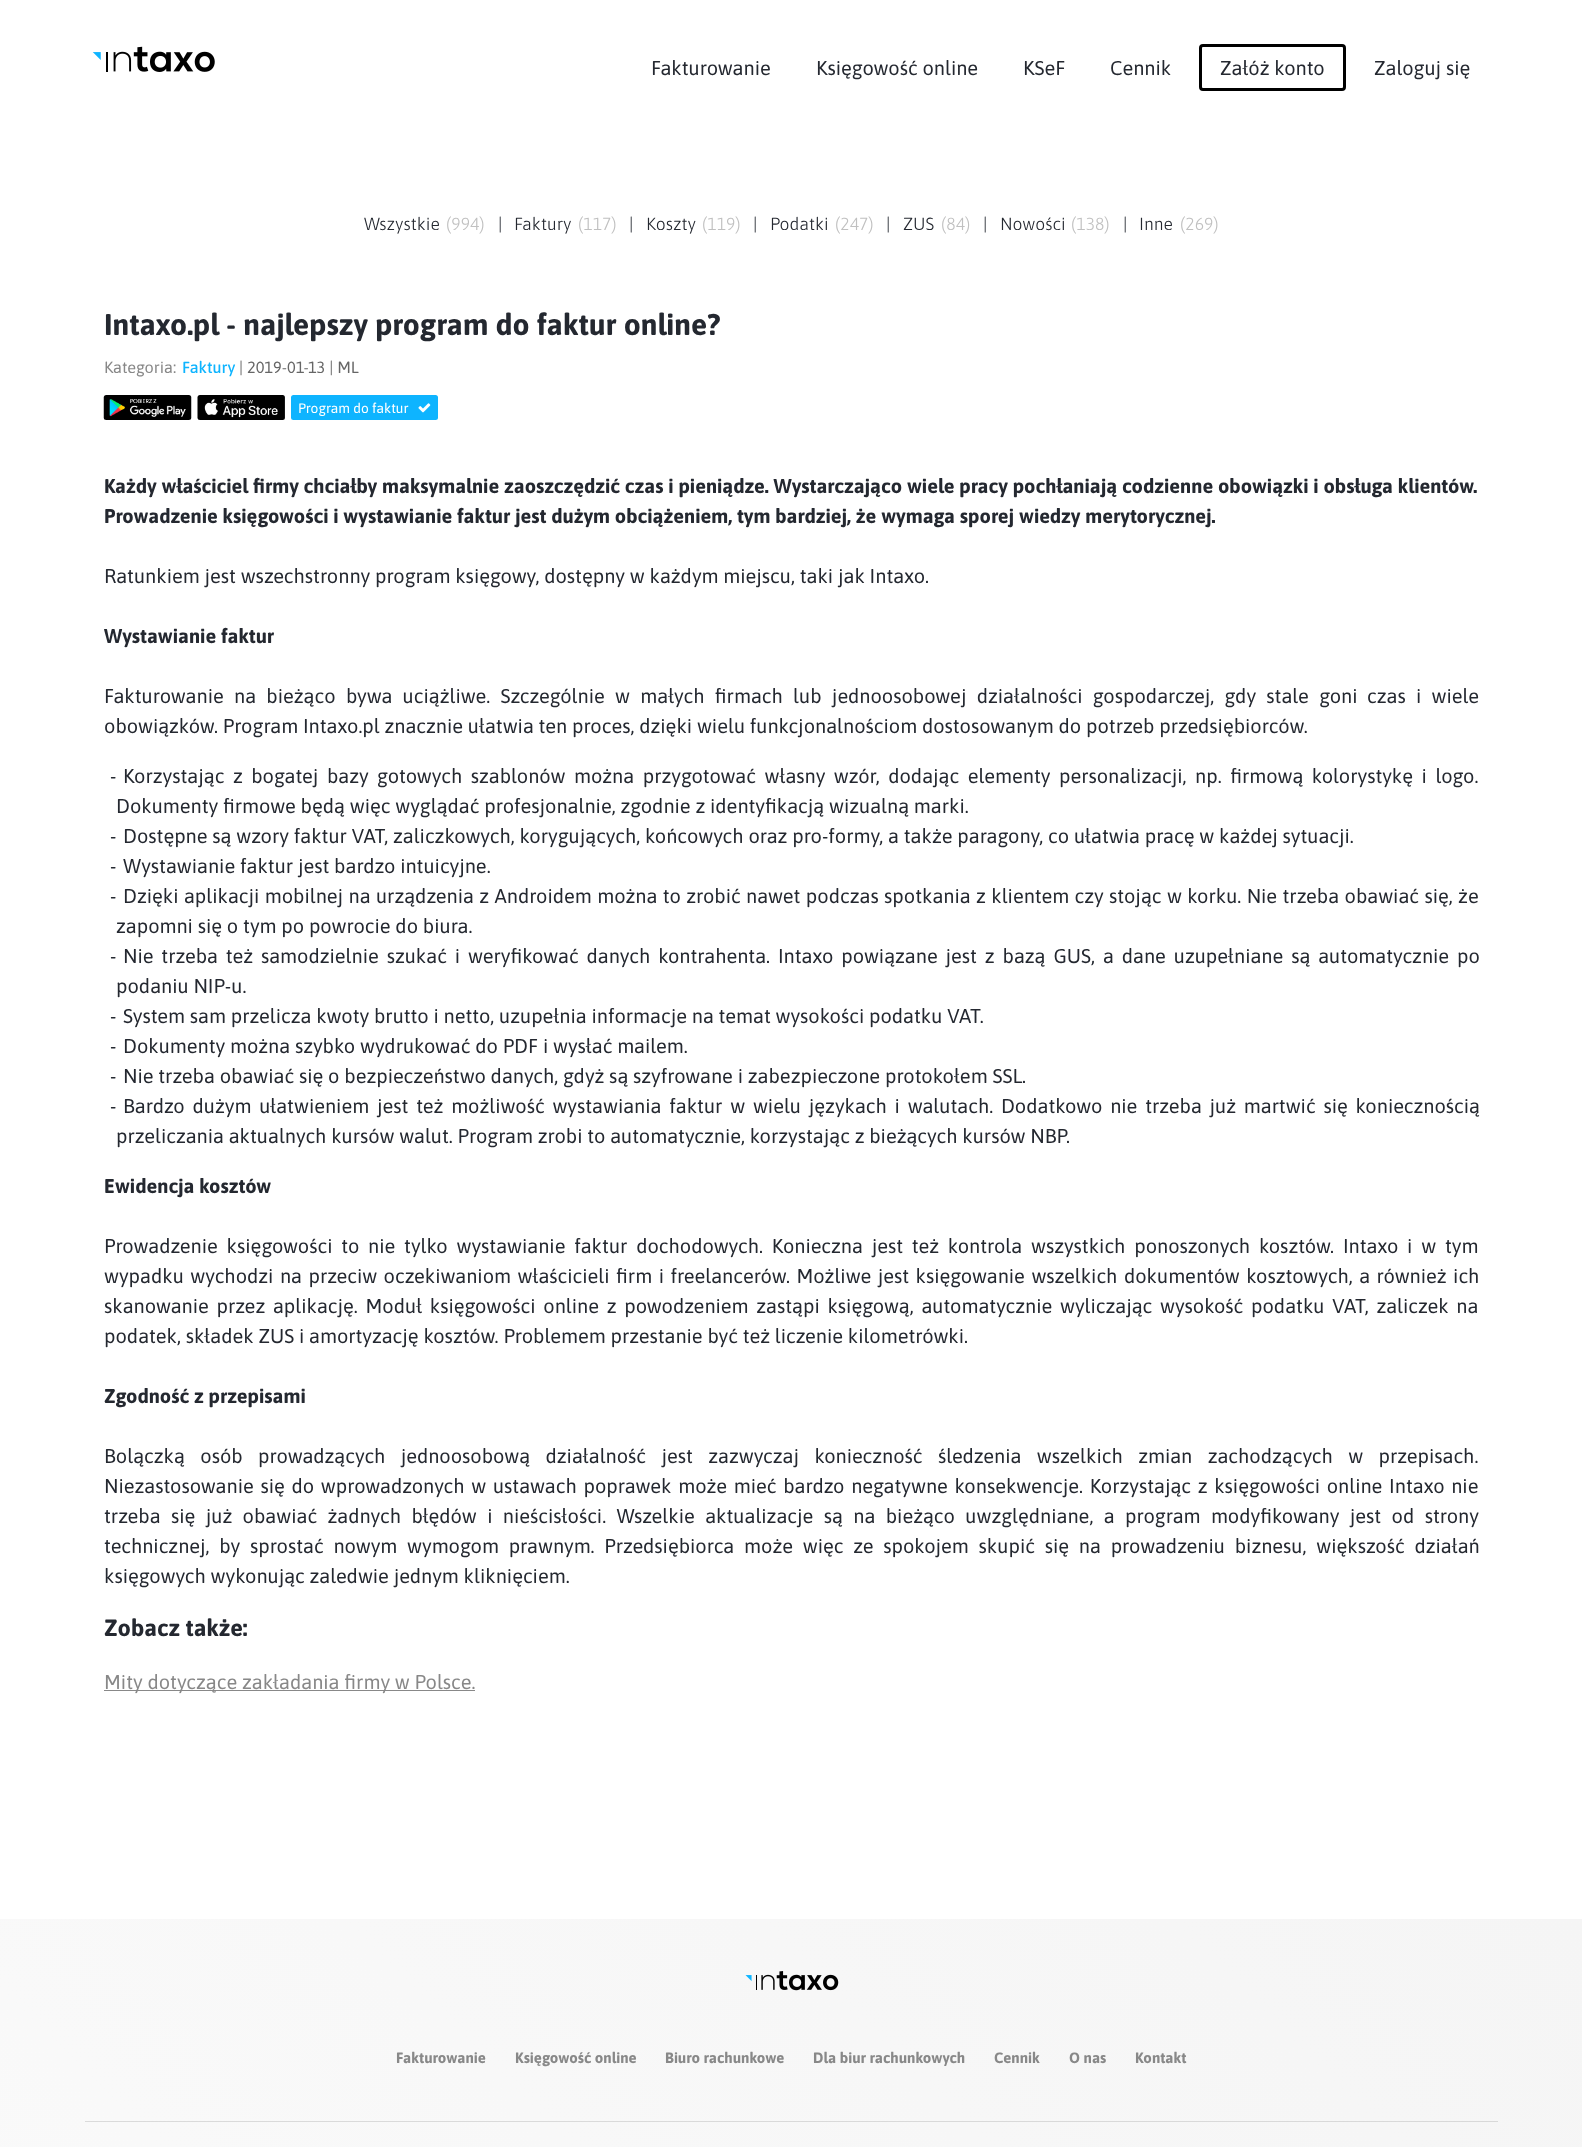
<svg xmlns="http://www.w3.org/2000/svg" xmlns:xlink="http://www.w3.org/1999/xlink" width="1582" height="2147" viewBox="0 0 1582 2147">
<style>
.cls-1{font:20px Asap;fill:#242830}
.cls-2{font:300 17.5px Asap;fill:#242830}
.cls-3{font:300 17.5px Asap;fill:#c0c0c0}
.cls-4{font:bold 30px Asap;fill:#242830}
.cls-5{font:16.25px Asap;fill:#888888}
.cls-6{font:500 16.25px Asap;fill:#0eb4ff}
.cls-7{font:16.25px Asap;fill:#666666}
.cls-8{font:13.75px Asap;fill:#ffffff}
.cls-9{font:bold 20px Asap;fill:#242830}
.cls-10{font:bold 23.5px Asap;fill:#242830}
.cls-11{font:20px Asap;fill:#888888}
.cls-12{font:bold 15px Asap;fill:#888888}
</style>
<defs>
<linearGradient id="g1" gradientUnits="userSpaceOnUse" x1="273" y1="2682" x2="1309" y2="1646"><stop offset="0" stop-color="#fafafa"/><stop offset="1" stop-color="#f5f5f5"/></linearGradient>
<linearGradient id="g2" gradientUnits="userSpaceOnUse" x1="273" y1="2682" x2="1309" y2="1646"><stop offset="0" stop-color="#dbdbdb"/><stop offset="1" stop-color="#d8d8d8"/></linearGradient>
</defs>
<rect width="100%" height="100%" fill="#ffffff"/>
<image xlink:href="image0.png" x="92" y="46" width="123" height="26"/>
<rect fill="none" stroke="#000000" stroke-width="3" x="1200.5" y="45.5" width="144" height="44" rx="2.5"/>
<image xlink:href="image1.png" x="103" y="395" width="89" height="25"/>
<image xlink:href="image2.png" x="197" y="395" width="88" height="25"/>
<rect fill="#0eb4ff" x="291" y="395" width="147" height="25" rx="2.5"/>
<image xlink:href="image3.png" x="418" y="403" width="13" height="10"/>
<rect fill="#888888" x="104" y="1690" width="371" height="1"/>
<rect fill="url(#g1)" x="0" y="1919" width="1582" height="228"/>
<rect fill="url(#g2)" x="85" y="2121" width="1413" height="1"/>
<image xlink:href="image4.png" x="745" y="1971" width="94" height="20"/>
<text class="cls-1" x="651" y="75">Fakturowanie</text>
<text class="cls-1" x="816" y="75">Księgowość online</text>
<text class="cls-1" x="1023" y="75">KSeF</text>
<text class="cls-1" x="1110" y="75">Cennik</text>
<text class="cls-1" x="1220" y="75">Załóż konto</text>
<text class="cls-1" x="1374" y="75">Zaloguj się</text>
<text class="cls-2" x="364" y="230">Wszystkie</text>
<text class="cls-3" x="446" y="230">(994)</text>
<text class="cls-2" x="498" y="230">|</text>
<text class="cls-2" x="514" y="230">Faktury</text>
<text class="cls-3" x="578" y="230">(117)</text>
<text class="cls-2" x="629" y="230">|</text>
<text class="cls-2" x="646" y="230">Koszty</text>
<text class="cls-3" x="702" y="230">(119)</text>
<text class="cls-2" x="753" y="230">|</text>
<text class="cls-2" x="770" y="230">Podatki</text>
<text class="cls-3" x="835" y="230">(247)</text>
<text class="cls-2" x="886" y="230">|</text>
<text class="cls-2" x="903" y="230">ZUS</text>
<text class="cls-3" x="941" y="230">(84)</text>
<text class="cls-2" x="983" y="230">|</text>
<text class="cls-2" x="1000" y="230">Nowości</text>
<text class="cls-3" x="1071" y="230">(138)</text>
<text class="cls-2" x="1123" y="230">|</text>
<text class="cls-2" x="1139" y="230">Inne</text>
<text class="cls-3" x="1180" y="230">(269)</text>
<text class="cls-4" x="104" y="335">Intaxo.pl - najlepszy program do faktur online?</text>
<text class="cls-5" x="104" y="373">Kategoria:</text>
<text class="cls-6" x="182" y="373">Faktury</text>
<text class="cls-7" x="239" y="373">| 2019-01-13 | ML</text>
<text class="cls-8" x="298" y="413">Program do faktur</text>
<text class="cls-9"><tspan x="104" y="493">Każdy właściciel firmy chciałby maksymalnie zaoszczędzić czas i pieniądze. Wystarczająco wiele pracy pochłaniają codzienne obowiązki i obsługa klientów.</tspan><tspan x="104" y="523">Prowadzenie księgowości i wystawianie faktur jest dużym obciążeniem, tym bardziej, że wymaga sporej wiedzy merytorycznej.</tspan></text>
<text class="cls-1" x="104" y="583">Ratunkiem jest wszechstronny program księgowy, dostępny w każdym miejscu, taki jak Intaxo.</text>
<text class="cls-9" x="104" y="643">Wystawianie faktur</text>
<text class="cls-1" x="104" y="703" word-spacing="5.5">Fakturowanie na bieżąco bywa uciążliwe. Szczególnie w małych firmach lub jednoosobowej działalności gospodarczej, gdy stale goni</text>
<text class="cls-1" x="1367" y="703" word-spacing="5.5">czas i wiele</text>
<text class="cls-1" x="104" y="733">obowiązków. Program Intaxo.pl znacznie ułatwia ten proces, dzięki wielu funkcjonalnościom dostosowanym do potrzeb przedsiębiorców.</text>
<text class="cls-1" x="110" y="783">-</text>
<text class="cls-1" x="123" y="783" word-spacing="3.75">Korzystając z bogatej bazy gotowych szablonów można przygotować własny wzór, dodając elementy personalizacji, np. firmową kolorystykę i logo.</text>
<text class="cls-1" x="116" y="813">Dokumenty firmowe będą więc wyglądać profesjonalnie, zgodnie z identyfikacją wizualną marki.</text>
<text class="cls-1" x="110" y="843">-</text>
<text class="cls-1" x="123" y="843">Dostępne są wzory faktur VAT, zaliczkowych, korygujących, końcowych oraz pro-formy, a także paragony, co ułatwia pracę w każdej sytuacji.</text>
<text class="cls-1" x="110" y="873">-</text>
<text class="cls-1" x="123" y="873">Wystawianie faktur jest bardzo intuicyjne.</text>
<text class="cls-1" x="110" y="903">-</text>
<text class="cls-1" x="123" y="903" word-spacing="0.6">Dzięki aplikacji mobilnej na urządzenia z Androidem można to zrobić nawet podczas spotkania z klientem czy stojąc w korku. Nie trzeba obawiać się, że</text>
<text class="cls-1" x="116" y="933">zapomni się o tym po powrocie do biura.</text>
<text class="cls-1" x="110" y="963">-</text>
<text class="cls-1" x="123" y="963" word-spacing="3.1">Nie trzeba też samodzielnie szukać i weryfikować danych kontrahenta. Intaxo powiązane jest z bazą GUS, a dane uzupełniane są automatycznie po</text>
<text class="cls-1" x="116" y="993">podaniu NIP-u.</text>
<text class="cls-1" x="110" y="1023">-</text>
<text class="cls-1" x="123" y="1023">System sam przelicza kwoty brutto i netto, uzupełnia informacje na temat wysokości podatku VAT.</text>
<text class="cls-1" x="110" y="1053">-</text>
<text class="cls-1" x="123" y="1053">Dokumenty można szybko wydrukować do PDF i wysłać mailem.</text>
<text class="cls-1" x="110" y="1083">-</text>
<text class="cls-1" x="123" y="1083">Nie trzeba obawiać się o bezpieczeństwo danych, gdyż są szyfrowane i zabezpieczone protokołem SSL.</text>
<text class="cls-1" x="110" y="1113">-</text>
<text class="cls-1" x="123" y="1113" word-spacing="3">Bardzo dużym ułatwieniem jest też możliwość wystawiania faktur w wielu językach i walutach. Dodatkowo nie trzeba już martwić się koniecznością</text>
<text class="cls-1" x="116" y="1143">przeliczania aktualnych kursów walut. Program zrobi to automatycznie, korzystając z bieżących kursów NBP.</text>
<text class="cls-9" x="104" y="1193">Ewidencja kosztów</text>
<text class="cls-1"><tspan x="104" y="1253" word-spacing="4">Prowadzenie księgowości to nie tylko wystawianie faktur dochodowych. Konieczna jest też kontrola wszystkich ponoszonych kosztów. Intaxo i w tym</tspan><tspan x="104" y="1283" word-spacing="1.7">wypadku wychodzi na przeciw oczekiwaniom właścicieli firm i freelancerów. Możliwe jest księgowanie wszelkich dokumentów kosztowych, a również ich</tspan><tspan x="104" y="1313" word-spacing="2.9">skanowanie przez aplikację. Moduł księgowości online z powodzeniem zastąpi księgową, automatycznie wyliczając wysokość podatku VAT, zaliczek na</tspan><tspan x="104" y="1343">podatek, składek ZUS i amortyzację kosztów. Problemem przestanie być też liczenie kilometrówki.</tspan></text>
<text class="cls-9" x="104" y="1403">Zgodność z przepisami</text>
<text class="cls-1"><tspan x="104" y="1463" word-spacing="10.6">Bolączką osób prowadzących jednoosobową działalność jest zazwyczaj konieczność śledzenia wszelkich zmian zachodzących w przepisach.</tspan><tspan x="104" y="1493" word-spacing="1.9">Niezastosowanie się do wprowadzonych w ustawach poprawek może mieć bardzo negatywne konsekwencje. Korzystając z księgowości online Intaxo nie</tspan><tspan x="104" y="1523" word-spacing="5.6">trzeba się już obawiać żadnych błędów i nieścisłości. Wszelkie aktualizacje są na bieżąco uwzględniane, a program modyfikowany jest od strony</tspan><tspan x="104" y="1553" word-spacing="5">technicznej, by sprostać nowym wymogom prawnym. Przedsiębiorca może więc ze spokojem skupić się na prowadzeniu biznesu, większość działań</tspan><tspan x="104" y="1583">księgowych wykonując zaledwie jednym kliknięciem.</tspan></text>
<text class="cls-10" x="104" y="1636">Zobacz także:</text>
<text class="cls-11" x="104" y="1689">Mity dotyczące zakładania firmy w Polsce.</text>
<text class="cls-12" x="396" y="2063">Fakturowanie</text>
<text class="cls-12" x="515" y="2063">Księgowość online</text>
<text class="cls-12" x="665" y="2063">Biuro rachunkowe</text>
<text class="cls-12" x="813" y="2063">Dla biur rachunkowych</text>
<text class="cls-12" x="994" y="2063">Cennik</text>
<text class="cls-12" x="1069" y="2063">O nas</text>
<text class="cls-12" x="1135" y="2063">Kontakt</text>
</svg>
